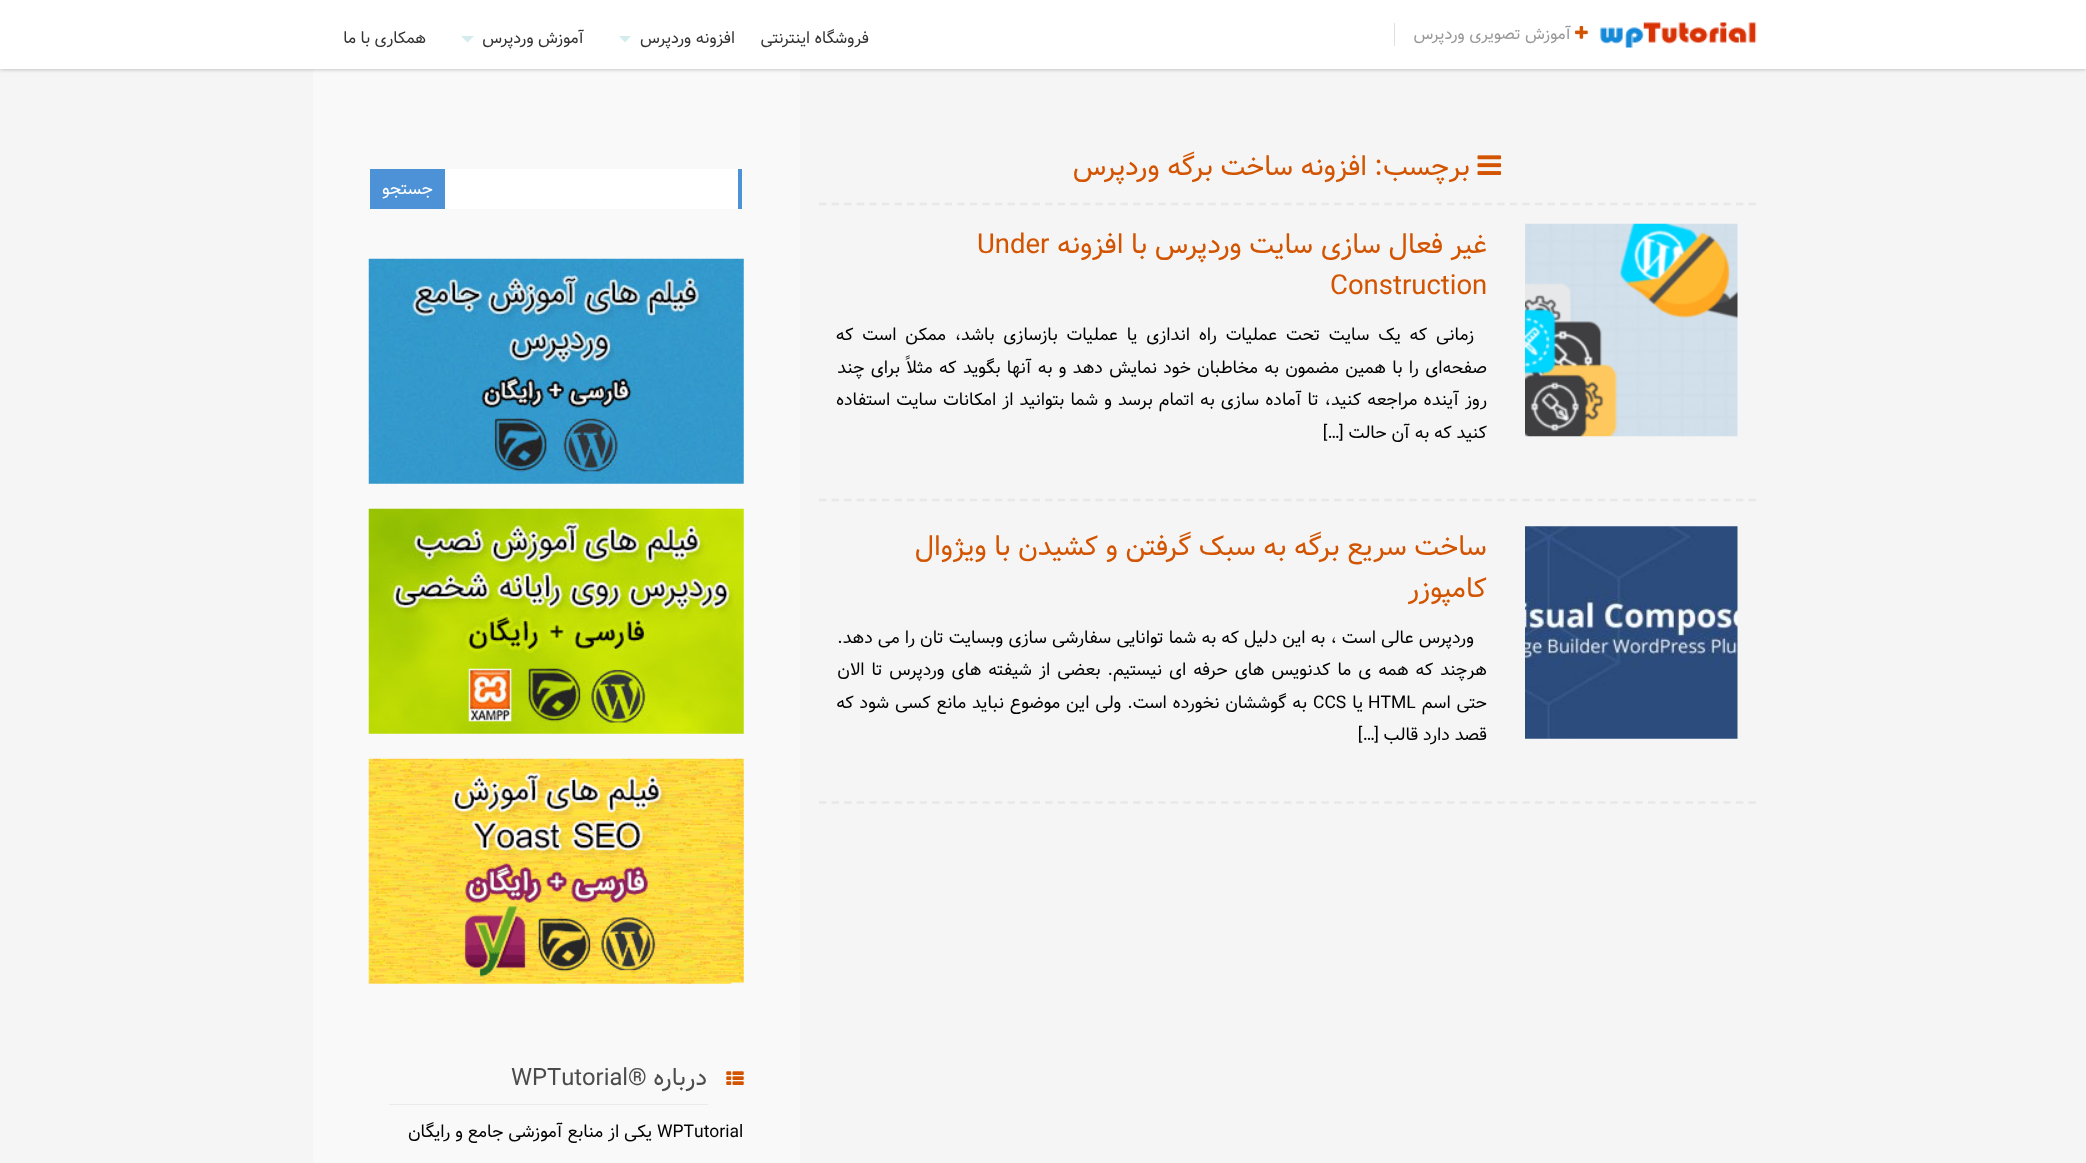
<svg xmlns="http://www.w3.org/2000/svg" xmlns:xlink="http://www.w3.org/1999/xlink" width="2086" height="1163" viewBox="0 0 2086 1163">
<style>
.cls-1{font:16.25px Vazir;direction:rtl;fill:#999999}
.cls-2{font:16.25px Vazir;direction:rtl;fill:#333333}
.cls-3{font:27.5px Vazir;direction:rtl;fill:#d35400}
.cls-4{font:27.5px Vazir;fill:#d35400}
.cls-5{font:17.5px Vazir;direction:rtl;fill:#000000}
.cls-6{font:17.5px Vazir;fill:#000000}
.cls-7{font:17.5px Vazir;direction:rtl;fill:#ffffff}
.cls-8{font:23.75px Vazir;direction:rtl;fill:#4c4c4c}
.cls-9{font:23.75px Vazir;fill:#4c4c4c}
</style>
<rect width="100%" height="100%" fill="#f5f5f5"/>
<rect fill="#f9f9f9" x="313" y="69" width="487" height="1094"/>
<rect fill="#000000" fill-opacity="0.3" filter="blur(2px)" x="0" y="0" width="2086" height="69"/>
<rect fill="#ffffff" x="0" y="0" width="2086" height="69"/>
<image xlink:href="image0.png" x="1599" y="22" width="158" height="26"/>
<rect fill="#e0e0e0" x="1394" y="23" width="1" height="23"/>
<image xlink:href="image1.png" x="1575" y="26" width="13" height="13"/>
<path fill="#d3eced" d="M619 36H631L625 42.5Z"/>
<path fill="#d3eced" d="M461 36H474L467.5 42.5Z"/>
<path fill="none" stroke="#e8e8e8" stroke-width="2.5" stroke-dasharray="7.5 5.06" d="M819 204H1756"/>
<image xlink:href="image2.png" x="1477" y="155" width="25" height="20"/>
<path fill="none" stroke="#e8e8e8" stroke-width="2.5" stroke-dasharray="7.5 5.06" d="M819 500H1756"/>
<image xlink:href="image3.png" x="1525" y="223" width="213" height="214"/>
<path fill="none" stroke="#e8e8e8" stroke-width="2.5" stroke-dasharray="7.5 5.06" d="M819 802.5H1756"/>
<image xlink:href="image4.png" x="1525" y="526" width="213" height="213"/>
<rect fill="#ffffff" x="445" y="169" width="293" height="40"/>
<rect fill="#4d91d6" x="738" y="169" width="4" height="40"/>
<rect fill="#4d91d6" x="370" y="169" width="75" height="40"/>
<image xlink:href="image5.png" x="368" y="258" width="376" height="226"/>
<image xlink:href="image6.png" x="368" y="508" width="376" height="226"/>
<image xlink:href="image7.png" x="368" y="758" width="376" height="226"/>
<image xlink:href="image8.png" x="726" y="1071" width="18" height="14"/>
<rect fill="#eaeaea" x="389" y="1104" width="319" height="1"/>
<text class="cls-1" x="1571" y="39">آموزش تصویری وردپرس</text>
<text class="cls-2" x="869" y="43">فروشگاه اینترنتی</text>
<text class="cls-2" x="735" y="43">افزونه وردپرس</text>
<text class="cls-2" x="584" y="43">آموزش وردپرس</text>
<text class="cls-2" x="426" y="43">همکاری با ما</text>
<text class="cls-3" x="1470" y="175">برچسب:</text>
<text class="cls-3" x="1367" y="175">افزونه ساخت برگه وردپرس</text>
<text class="cls-3" x="1487" y="253">غیر فعال سازی سایت وردپرس با افزونه</text>
<text class="cls-4" x="977" y="253">Under</text>
<text class="cls-4" x="1330" y="294">Construction</text>
<text class="cls-5" x="1474" y="340" word-spacing="4">زمانی که یک سایت تحت عملیات راه اندازی یا عملیات بازسازی باشد، ممکن است که</text>
<text class="cls-5"><tspan x="1487" y="373" word-spacing="1.5">صفحه‌ای را با همین مضمون به مخاطبان خود نمایش دهد و به آنها بگوید که مثلاً برای چند</tspan><tspan x="1487" y="405" word-spacing="1.25">روز آینده مراجعه کنید، تا آماده سازی به اتمام برسد و شما بتوانید از امکانات سایت استفاده</tspan><tspan x="1487" y="438">کنید که به آن حالت […]</tspan></text>
<text class="cls-3"><tspan x="1487" y="555">ساخت سریع برگه به سبک گرفتن و کشیدن با ویژوال</tspan><tspan x="1487" y="597">کامپوزر</tspan></text>
<text class="cls-5" x="1474" y="643" word-spacing="0.3">وردپرس عالی است ، به این دلیل که به شما توانایی سفارشی سازی وبسایت تان را می دهد.</text>
<text class="cls-5"><tspan x="1487" y="675" word-spacing="2.1">هرچند که همه ی ما کدنویس های حرفه ای نیستیم. بعضی از شیفته های وردپرس تا الان</tspan><tspan x="1487" y="708" word-spacing="1">حتی اسم</tspan></text>
<text class="cls-6" x="1368" y="708">HTML</text>
<text class="cls-5" x="1363" y="708">یا</text>
<text class="cls-6" x="1313" y="708">CCS</text>
<text class="cls-5" x="1307" y="708" word-spacing="1">به گوششان نخورده است. ولی این موضوع نباید مانع کسی شود که</text>
<text class="cls-5" x="1487" y="740">قصد دارد قالب […]</text>
<text class="cls-7" x="433" y="194">جستجو</text>
<text class="cls-8" x="707" y="1085">درباره ®</text>
<text class="cls-9" x="511" y="1085">WPTutorial</text>
<text class="cls-6" x="657" y="1137">WPTutorial</text>
<text class="cls-5" x="652" y="1137">یکی از منابع آموزشی جامع و رایگان</text>
</svg>
